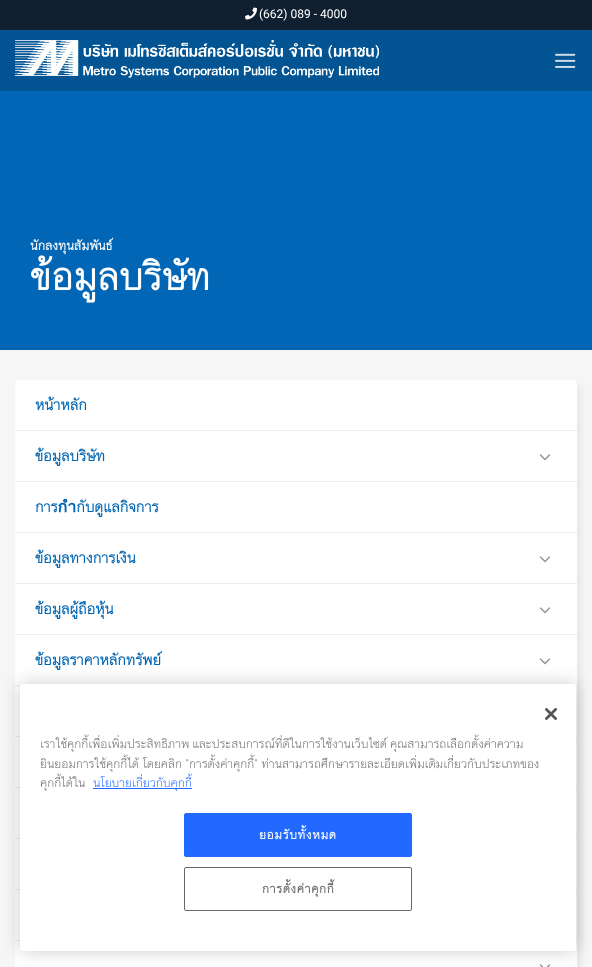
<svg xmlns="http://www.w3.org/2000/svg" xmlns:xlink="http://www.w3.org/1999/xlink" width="592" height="967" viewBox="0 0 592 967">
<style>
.cls-1{font:12px Roboto;fill:#ffffff}
.cls-2{font:bold 13.75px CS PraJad;fill:#ffffff}
.cls-3{font:bold 41.25px CS PraJad;fill:#ffffff}
.cls-4{font:bold 16px CS PraJad;fill:#0066b3}
.cls-5{font:13.1px CS PraJad;fill:#696969}
.cls-6{font:13.1px CS PraJad;fill:#2269ff}
.cls-7{font:bold 13.1px CS PraJad;letter-spacing:0.7px;fill:#ffffff}
.cls-8{font:bold 13.1px CS PraJad;letter-spacing:0.7px;fill:#696969}
</style>
<rect width="100%" height="100%" fill="#f6f6f6"/>
<rect fill="#025493" x="0" y="30" width="592" height="61"/>
<rect fill="#102031" x="0" y="0" width="592" height="30"/>
<image xlink:href="image0.png" x="245" y="7" width="12" height="13"/>
<image xlink:href="image1.png" x="15" y="40" width="364" height="38"/>
<image xlink:href="image2.png" x="555" y="53" width="21" height="15"/>
<rect fill="#0066b5" x="0" y="91" width="592" height="259"/>
<rect fill="#000000" fill-opacity="0.05" filter="blur(2.5px)" x="20" y="385" width="562" height="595" rx="5"/>
<rect fill="#ffffff" x="15" y="380" width="562" height="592" rx="5"/>
<rect fill="#ececec" x="15" y="430" width="562" height="1"/>
<image xlink:href="image3.png" x="539" y="454" width="12" height="7"/>
<rect fill="#ececec" x="15" y="481" width="562" height="1"/>
<rect fill="#ececec" x="15" y="532" width="562" height="1"/>
<image xlink:href="image3.png" x="539" y="556" width="12" height="7"/>
<rect fill="#ececec" x="15" y="583" width="562" height="1"/>
<image xlink:href="image3.png" x="539" y="607" width="12" height="7"/>
<rect fill="#ececec" x="15" y="634" width="562" height="1"/>
<image xlink:href="image3.png" x="539" y="658" width="12" height="7"/>
<rect fill="#ececec" x="15" y="685" width="562" height="1"/>
<rect fill="#ececec" x="15" y="736" width="562" height="1"/>
<rect fill="#ececec" x="15" y="787" width="562" height="1"/>
<rect fill="#ececec" x="15" y="838" width="562" height="1"/>
<rect fill="#ececec" x="15" y="889" width="562" height="1"/>
<rect fill="#ececec" x="15" y="940" width="562" height="1"/>
<image xlink:href="image4.png" x="539" y="964" width="12" height="3"/>
<rect fill="#000000" fill-opacity="0.2" filter="blur(9px)" x="20" y="684" width="556" height="267" rx="2.5"/>
<rect fill="#ffffff" x="20" y="684" width="556" height="267" rx="2.5"/>
<image xlink:href="image5.png" x="545" y="708" width="12" height="12"/>
<rect fill="#2269ff" x="93" y="788" width="99" height="1"/>
<rect fill="#2269ff" stroke="#2269ff" x="184.5" y="813.5" width="227" height="43" rx="1.5"/>
<rect fill="none" stroke="#696969" x="184.5" y="867.5" width="227" height="43" rx="1.5"/>
<text class="cls-1" x="259" y="18">(662) 089 - 4000</text>
<text class="cls-2" x="30" y="250">นักลงทุนสัมพันธ์</text>
<text class="cls-3" x="30" y="290">ข้อมูลบริษัท</text>
<text class="cls-4" x="35" y="410">หน้าหลัก</text>
<text class="cls-4" x="35" y="461">ข้อมูลบริษัท</text>
<text class="cls-4" x="35" y="512">การกำกับดูแลกิจการ</text>
<text class="cls-4" x="35" y="563">ข้อมูลทางการเงิน</text>
<text class="cls-4" x="35" y="614">ข้อมูลผู้ถือหุ้น</text>
<text class="cls-4" x="35" y="665">ข้อมูลราคาหลักทรัพย์</text>
<text class="cls-5"><tspan x="40" y="748" word-spacing="-1">เราใช้คุกกี้เพื่อเพิ่มประสิทธิภาพ และประสบการณ์ที่ดีในการใช้งานเว็บไซต์ คุณสามารถเลือกตั้งค่าความ</tspan><tspan x="40" y="768" word-spacing="-0.5">ยินยอมการใช้คุกกี้ได้ โดยคลิก "การตั้งค่าคุกกี้" ท่านสามารถศึกษารายละเอียดเพิ่มเติมเกี่ยวกับประเภทของ</tspan><tspan x="40" y="787">คุกกี้ได้ใน</tspan></text>
<text class="cls-6" x="93" y="787">นโยบายเกี่ยวกับคุกกี้</text>
<text class="cls-7" x="259" y="839">ยอมรับทั้งหมด</text>
<text class="cls-8" x="262" y="893">การตั้งค่าคุกกี้</text>
</svg>
